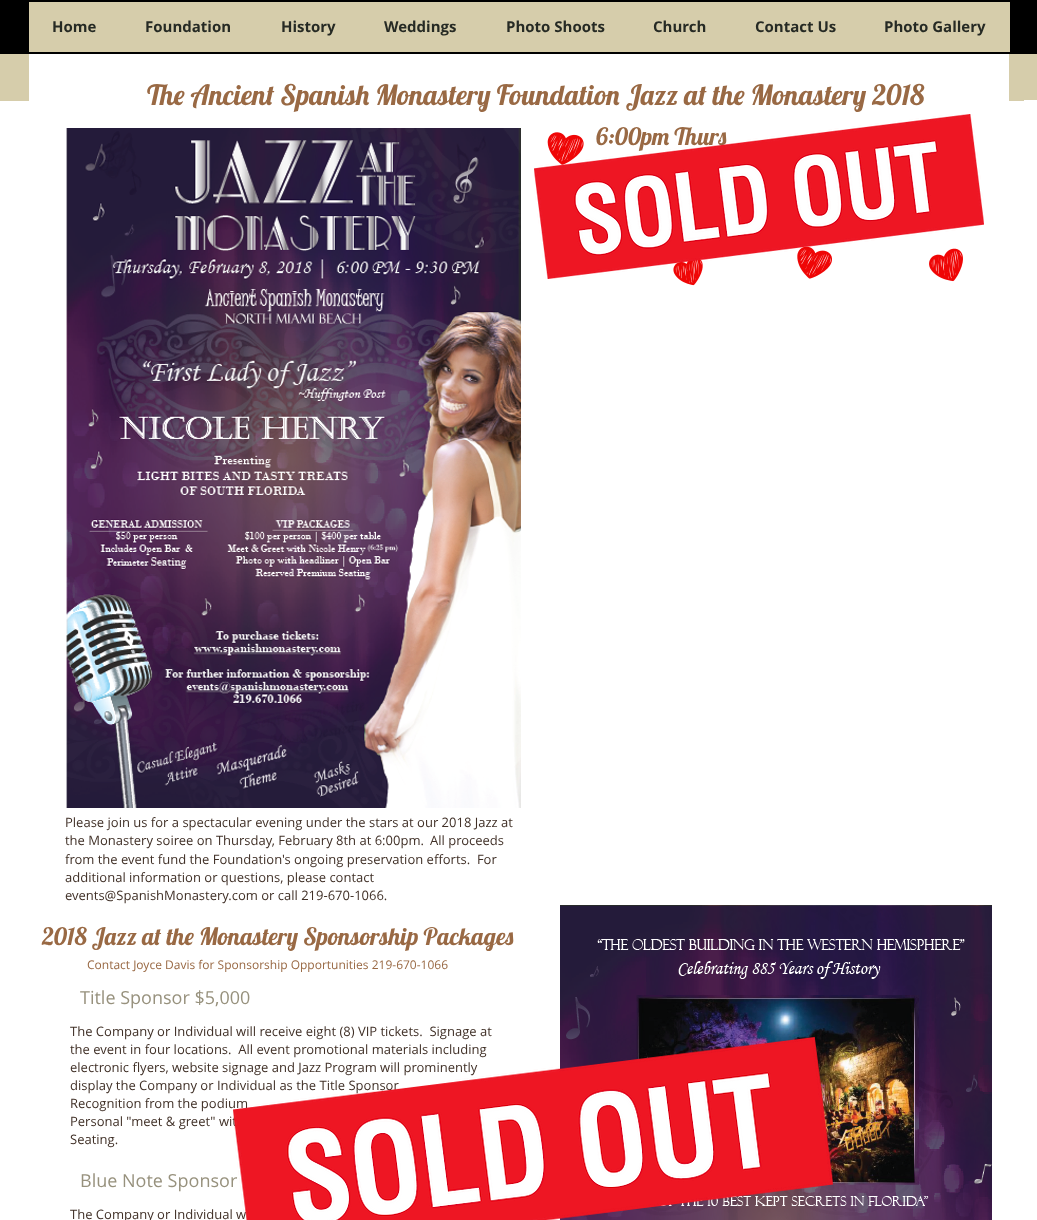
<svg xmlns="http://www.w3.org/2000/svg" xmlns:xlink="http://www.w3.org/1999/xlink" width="1037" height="1220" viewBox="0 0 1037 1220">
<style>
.cls-1{font:bold 15px Open Sans;fill:#262a24}
.cls-2{font:28px Lobster;fill:#996944}
.cls-3{font:24px Lobster;fill:#996944}
.cls-4{font:13px Open Sans;fill:#403027}
.cls-5{font:12px Open Sans;fill:#996944}
.cls-6{font:18px Open Sans;fill:#97917d}
</style>
<rect width="100%" height="100%" fill="#ffffff"/>
<rect fill="#000000" x="0" y="0" width="1037" height="54"/>
<rect fill="#d6cdab" x="29" y="2" width="981" height="50"/>
<rect fill="#d6cdab" x="0" y="54" width="1037" height="46"/>
<rect fill="#d6cdab" x="0" y="100" width="1024" height="1"/>
<rect fill="#ffffff" x="29" y="54" width="980" height="47"/>
<image xlink:href="image1.png" x="66" y="128" width="455" height="680"/>
<image xlink:href="image2.png" x="547" y="132" width="37" height="33"/>
<image xlink:href="image3.png" x="971" y="138" width="3" height="11"/>
<image xlink:href="image4.png" x="673" y="258" width="30" height="28"/>
<image xlink:href="image5.png" x="797" y="246" width="35" height="33"/>
<image xlink:href="image6.png" x="929" y="248" width="34" height="34"/>
<image xlink:href="image7.png" x="560" y="905" width="432" height="315"/>
<text class="cls-1" x="52" y="32">Home</text>
<text class="cls-1" x="145" y="32">Foundation</text>
<text class="cls-1" x="281" y="32">History</text>
<text class="cls-1" x="384" y="32">Weddings</text>
<text class="cls-1" x="506" y="32">Photo Shoots</text>
<text class="cls-1" x="653" y="32">Church</text>
<text class="cls-1" x="755" y="32">Contact Us</text>
<text class="cls-1" x="884" y="32">Photo Gallery</text>
<text class="cls-2" x="147" y="105">The Ancient Spanish Monastery Foundation Jazz at the Monastery 2018</text>
<text class="cls-3" x="596" y="145">6:00pm Thurs</text>
<image xlink:href="image0.png" x="534" y="114" width="450" height="165"/>
<text class="cls-4"><tspan x="65" y="827">Please join us for a spectacular evening under the stars at our 2018 Jazz at</tspan><tspan x="65" y="845">the Monastery soiree on Thursday, February 8th at 6:00pm.</tspan></text>
<text class="cls-4" x="430" y="845">All proceeds</text>
<text class="cls-4" xml:space="preserve"><tspan x="65" y="864">from the event fund the Foundation's ongoing preservation efforts.  For</tspan><tspan x="65" y="882">additional information or questions, please contact</tspan><tspan x="65" y="900">events@SpanishMonastery.com or call 219-670-1066.</tspan></text>
<text class="cls-3" x="42" y="945">2018 Jazz at the Monastery Sponsorship Packages</text>
<text class="cls-5" x="87" y="969">Contact Joyce Davis for Sponsorship Opportunities 219-670-1066</text>
<text class="cls-6" x="80" y="1004">Title Sponsor $5,000</text>
<text class="cls-4" xml:space="preserve"><tspan x="70" y="1036">The Company or Individual will receive eight (8) VIP tickets.  Signage at</tspan><tspan x="70" y="1054">the event in four locations.  All event promotional materials including</tspan><tspan x="70" y="1072">electronic flyers, website signage and Jazz Program will prominently</tspan><tspan x="70" y="1090">display the Company or Individual as the Title Sponsor</tspan><tspan x="70" y="1108">Recognition from the podium</tspan><tspan x="70" y="1126">Personal "meet &amp; greet" wit</tspan><tspan x="70" y="1144">Seating.</tspan></text>
<text class="cls-6" x="80" y="1187">Blue Note Sponsor</text>
<text class="cls-4" x="70" y="1219">The Company or Individual w</text>
<image xlink:href="image8.png" x="233" y="1037" width="600" height="183"/>
</svg>
